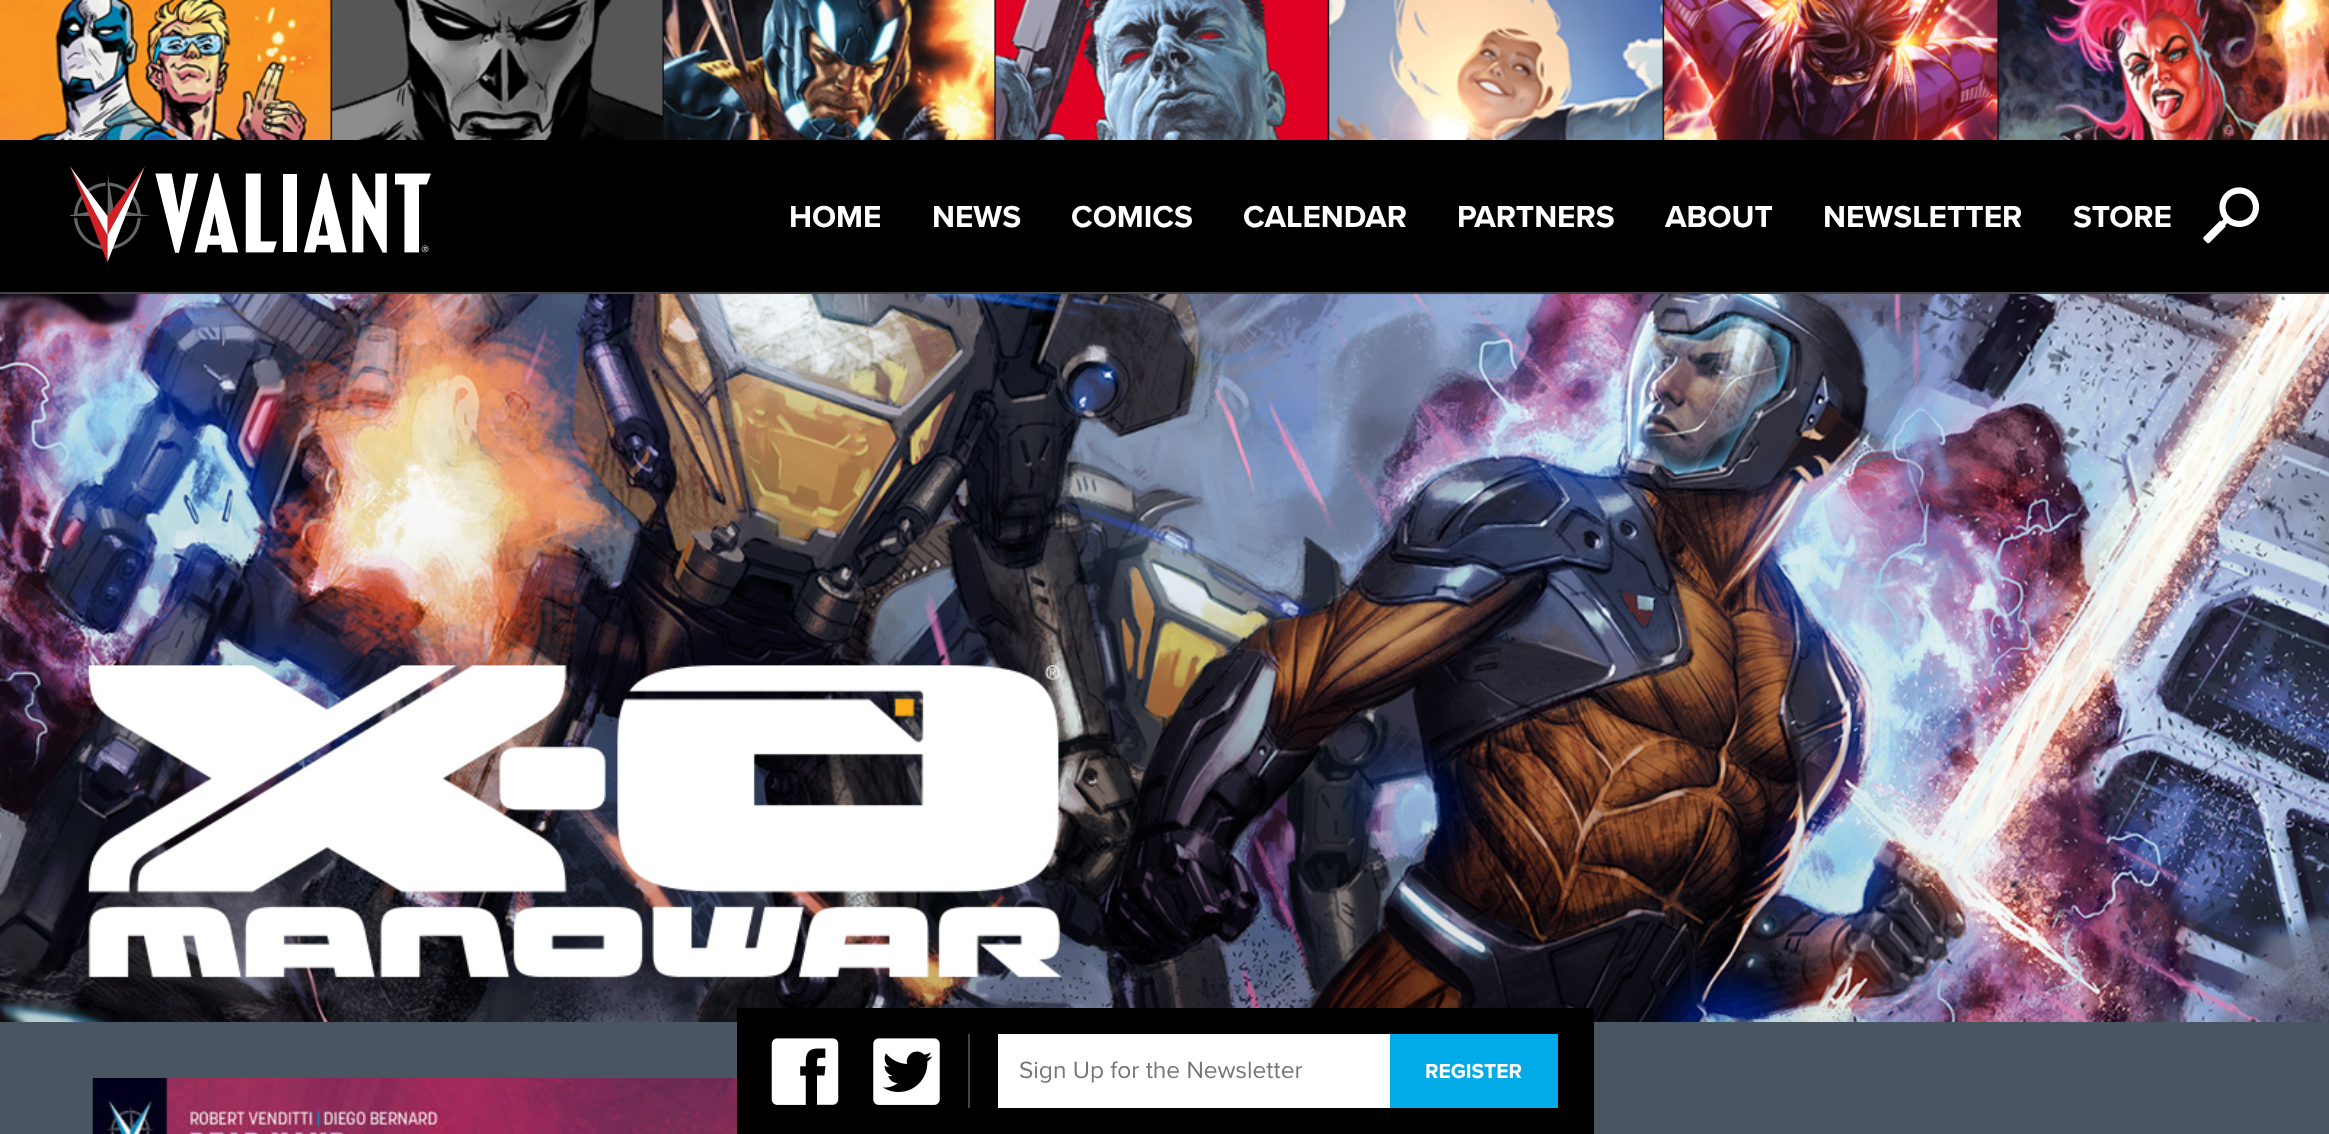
<svg xmlns="http://www.w3.org/2000/svg" xmlns:xlink="http://www.w3.org/1999/xlink" width="2329" height="1134" viewBox="0 0 2329 1134">
<style>
.cls-1{font:bold 31.5px Proxima Nova;fill:#ffffff}
.cls-2{font:24.5px Proxima Nova;fill:#757575}
.cls-3{font:bold 21px Proxima Nova;fill:#ffffff}
</style>
<rect width="100%" height="100%" fill="#495661"/>
<image xlink:href="image0.png" x="0" y="0" width="2329" height="140"/>
<rect fill="#000000" x="0" y="140" width="2329" height="152"/>
<rect fill="#444444" x="0" y="292" width="2329" height="2"/>
<image xlink:href="image1.png" x="70" y="166" width="361" height="97"/>
<image xlink:href="image2.png" x="2203" y="187" width="57" height="57"/>
<image xlink:href="image3.png" x="0" y="294" width="2329" height="728"/>
<image xlink:href="image4.png" x="92" y="1078" width="645" height="56"/>
<rect fill="#000000" x="737" y="1008" width="857" height="126"/>
<image xlink:href="image5.png" x="771" y="1038" width="68" height="67"/>
<image xlink:href="image6.png" x="873" y="1038" width="67" height="67"/>
<rect fill="#444444" x="968" y="1034" width="2" height="74"/>
<rect fill="#ffffff" x="998" y="1034" width="392" height="74"/>
<rect fill="#00abe8" x="1390" y="1034" width="168" height="74"/>
<text class="cls-1" x="789" y="227">HOME</text>
<text class="cls-1" x="932" y="227">NEWS</text>
<text class="cls-1" x="1071" y="227">COMICS</text>
<text class="cls-1" x="1243" y="227">CALENDAR</text>
<text class="cls-1" x="1457" y="227">PARTNERS</text>
<text class="cls-1" x="1665" y="227">ABOUT</text>
<text class="cls-1" x="1823" y="227">NEWSLETTER</text>
<text class="cls-1" x="2073" y="227">STORE</text>
<text class="cls-2" x="1019" y="1078">Sign Up for the Newsletter</text>
<text class="cls-3" x="1425" y="1078">REGISTER</text>
</svg>
